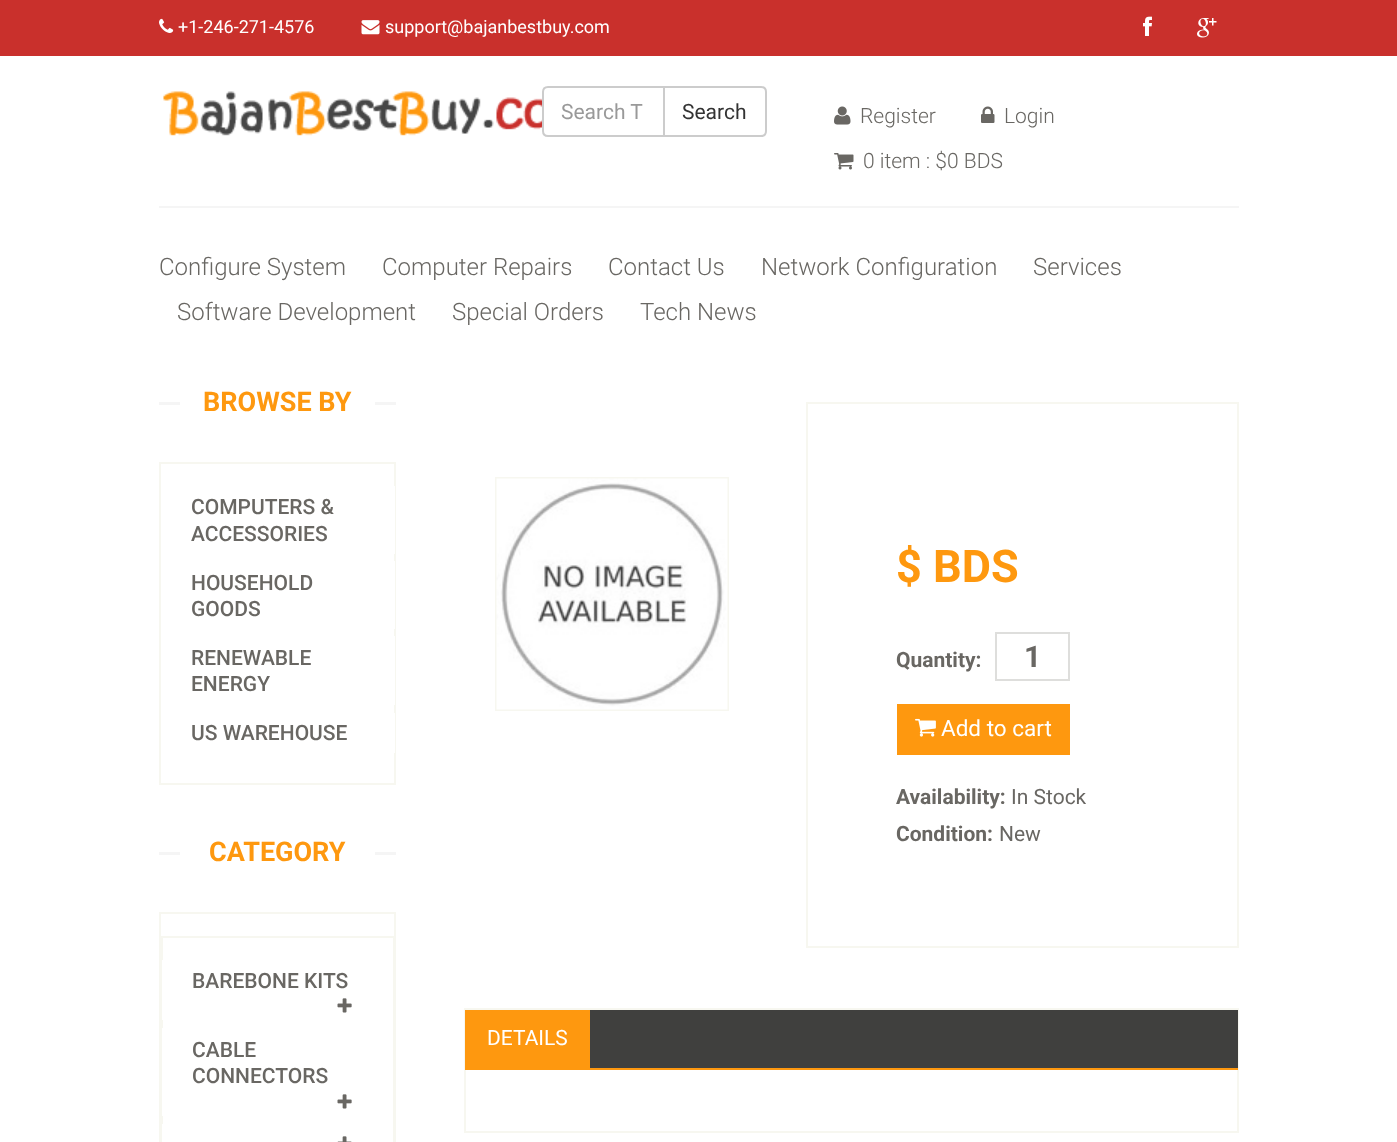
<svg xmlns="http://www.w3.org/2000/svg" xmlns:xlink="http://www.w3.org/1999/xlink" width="1397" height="1142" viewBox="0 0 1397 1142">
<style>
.cls-1{font:18px Roboto;fill:#ffffff}
.cls-2{font:21px Roboto;fill:#999999}
.cls-3{font:21px Roboto;fill:#333333}
.cls-4{font:300 21px Roboto;fill:#696763}
.cls-5{font:300 24px Roboto;fill:#696763}
.cls-6{font:bold 27px Roboto;fill:#fe980f}
.cls-7{font:500 21px Roboto;fill:#696763}
.cls-8{font:bold 45px Roboto;fill:#fe980f}
.cls-9{font:bold 21px Roboto;fill:#696763}
.cls-10{font:bold 30px Roboto;fill:#696763}
.cls-11{font:22.5px Roboto;fill:#ffffff}
.cls-12{font:21px Roboto;fill:#696763}
.cls-13{font:21px Roboto;fill:#ffffff}
</style>
<rect width="100%" height="100%" fill="#ffffff"/>
<rect fill="#c9302c" x="0" y="0" width="1397" height="56"/>
<image xlink:href="image0.png" x="159" y="18" width="15" height="15"/>
<image xlink:href="image1.png" x="361" y="20" width="19" height="15"/>
<image xlink:href="image2.png" x="1143" y="16" width="9" height="20"/>
<image xlink:href="image3.png" x="1197" y="18" width="20" height="20"/>
<rect fill="#f5f5f5" x="159" y="206" width="1080" height="2"/>
<image xlink:href="image4.png" x="163" y="91" width="379" height="45"/>
<path fill="none" stroke="#cccccc" stroke-width="2" d="M548 87H664V136H548C545 136 543 134 543 131V92C543 89 545 87 548 87Z"/>
<path fill="#ffffff" stroke="#cccccc" stroke-width="2" d="M664 87H761C764 87 766 89 766 92V131C766 134 764 136 761 136H664Z"/>
<image xlink:href="image5.png" x="834" y="106" width="17" height="19"/>
<image xlink:href="image6.png" x="981" y="106" width="14" height="17"/>
<image xlink:href="image7.png" x="834" y="153" width="20" height="17"/>
<rect fill="#f5f5f5" x="159" y="402" width="237" height="3"/>
<rect fill="#ffffff" x="180" y="402" width="195" height="3"/>
<rect fill="none" stroke="#f7f7f0" stroke-width="2" x="160" y="463" width="235" height="321"/>
<rect fill="#ffffff" x="394" y="486" width="1" height="68"/>
<rect fill="#ffffff" x="394" y="561" width="1" height="68"/>
<rect fill="#ffffff" x="394" y="636" width="1" height="69"/>
<rect fill="#ffffff" x="394" y="713" width="1" height="40"/>
<rect fill="#f5f5f5" x="159" y="852" width="237" height="3"/>
<rect fill="#ffffff" x="180" y="852" width="195" height="3"/>
<rect fill="none" stroke="#f7f7f0" stroke-width="2" x="160" y="913" width="235" height="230"/>
<rect fill="none" stroke="#f7f7f0" stroke-width="2" x="162" y="937" width="232" height="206"/>
<rect fill="#ffffff" x="162" y="960" width="1" height="60"/>
<image xlink:href="image8.png" x="337" y="998" width="15" height="15"/>
<rect fill="#ffffff" x="162" y="1028" width="1" height="88"/>
<image xlink:href="image8.png" x="337" y="1094" width="15" height="15"/>
<rect fill="#ffffff" x="162" y="1124" width="1" height="18"/>
<image xlink:href="image9.png" x="337" y="1136" width="15" height="6"/>
<rect fill="none" stroke="#f7f7f0" stroke-width="2" x="496" y="478" width="232" height="232"/>
<image xlink:href="image10.png" x="496" y="478" width="232" height="232"/>
<rect fill="none" stroke="#f7f7f0" stroke-width="2" x="807" y="403" width="431" height="544"/>
<rect fill="none" stroke="#dededc" stroke-width="2" x="996" y="633" width="73" height="47"/>
<rect fill="#fe980f" x="897" y="704" width="173" height="51"/>
<image xlink:href="image11.png" x="915" y="718" width="21" height="19"/>
<rect fill="none" stroke="#f7f7f0" stroke-width="2" x="465" y="1009" width="773" height="123"/>
<rect fill="#40403e" x="590" y="1010" width="648" height="58"/>
<rect fill="#fe980f" x="590" y="1068" width="648" height="2"/>
<rect fill="#fe980f" x="465" y="1010" width="125" height="60"/>
<text class="cls-1" x="178" y="33">+1-246-271-4576</text>
<text class="cls-1" x="385" y="33">support@bajanbestbuy.com</text>
<text class="cls-2" x="561" y="119">Search T</text>
<text class="cls-3" x="682" y="119">Search</text>
<text class="cls-4" x="860" y="123">Register</text>
<text class="cls-4" x="1004" y="123">Login</text>
<text class="cls-4" x="863" y="168">0 item : $0 BDS</text>
<text class="cls-5" x="159" y="275">Configure System</text>
<text class="cls-5" x="382" y="275">Computer Repairs</text>
<text class="cls-5" x="608" y="275">Contact Us</text>
<text class="cls-5" x="761" y="275">Network Configuration</text>
<text class="cls-5" x="1033" y="275">Services</text>
<text class="cls-5" x="177" y="320">Software Development</text>
<text class="cls-5" x="452" y="320">Special Orders</text>
<text class="cls-5" x="640" y="320">Tech News</text>
<text class="cls-6" x="203" y="411">BROWSE BY</text>
<text class="cls-7"><tspan x="191" y="514">COMPUTERS &amp;</tspan><tspan x="191" y="541">ACCESSORIES</tspan></text>
<text class="cls-7"><tspan x="191" y="590">HOUSEHOLD</tspan><tspan x="191" y="616">GOODS</tspan></text>
<text class="cls-7"><tspan x="191" y="665">RENEWABLE</tspan><tspan x="191" y="691">ENERGY</tspan></text>
<text class="cls-7" x="191" y="740">US WAREHOUSE</text>
<text class="cls-6" x="209" y="861">CATEGORY</text>
<text class="cls-7" x="192" y="988">BAREBONE KITS</text>
<text class="cls-7"><tspan x="192" y="1057">CABLE</tspan><tspan x="192" y="1083">CONNECTORS</tspan></text>
<text class="cls-8" x="896" y="582">$ BDS</text>
<text class="cls-9" x="896" y="667">Quantity:</text>
<text class="cls-10" x="1024" y="667">1</text>
<text class="cls-11" x="941" y="736">Add to cart</text>
<text class="cls-9" x="896" y="804">Availability:</text>
<text class="cls-12" x="1011" y="804">In Stock</text>
<text class="cls-9" x="896" y="841">Condition:</text>
<text class="cls-12" x="999" y="841">New</text>
<text class="cls-13" x="487" y="1045">DETAILS</text>
</svg>
